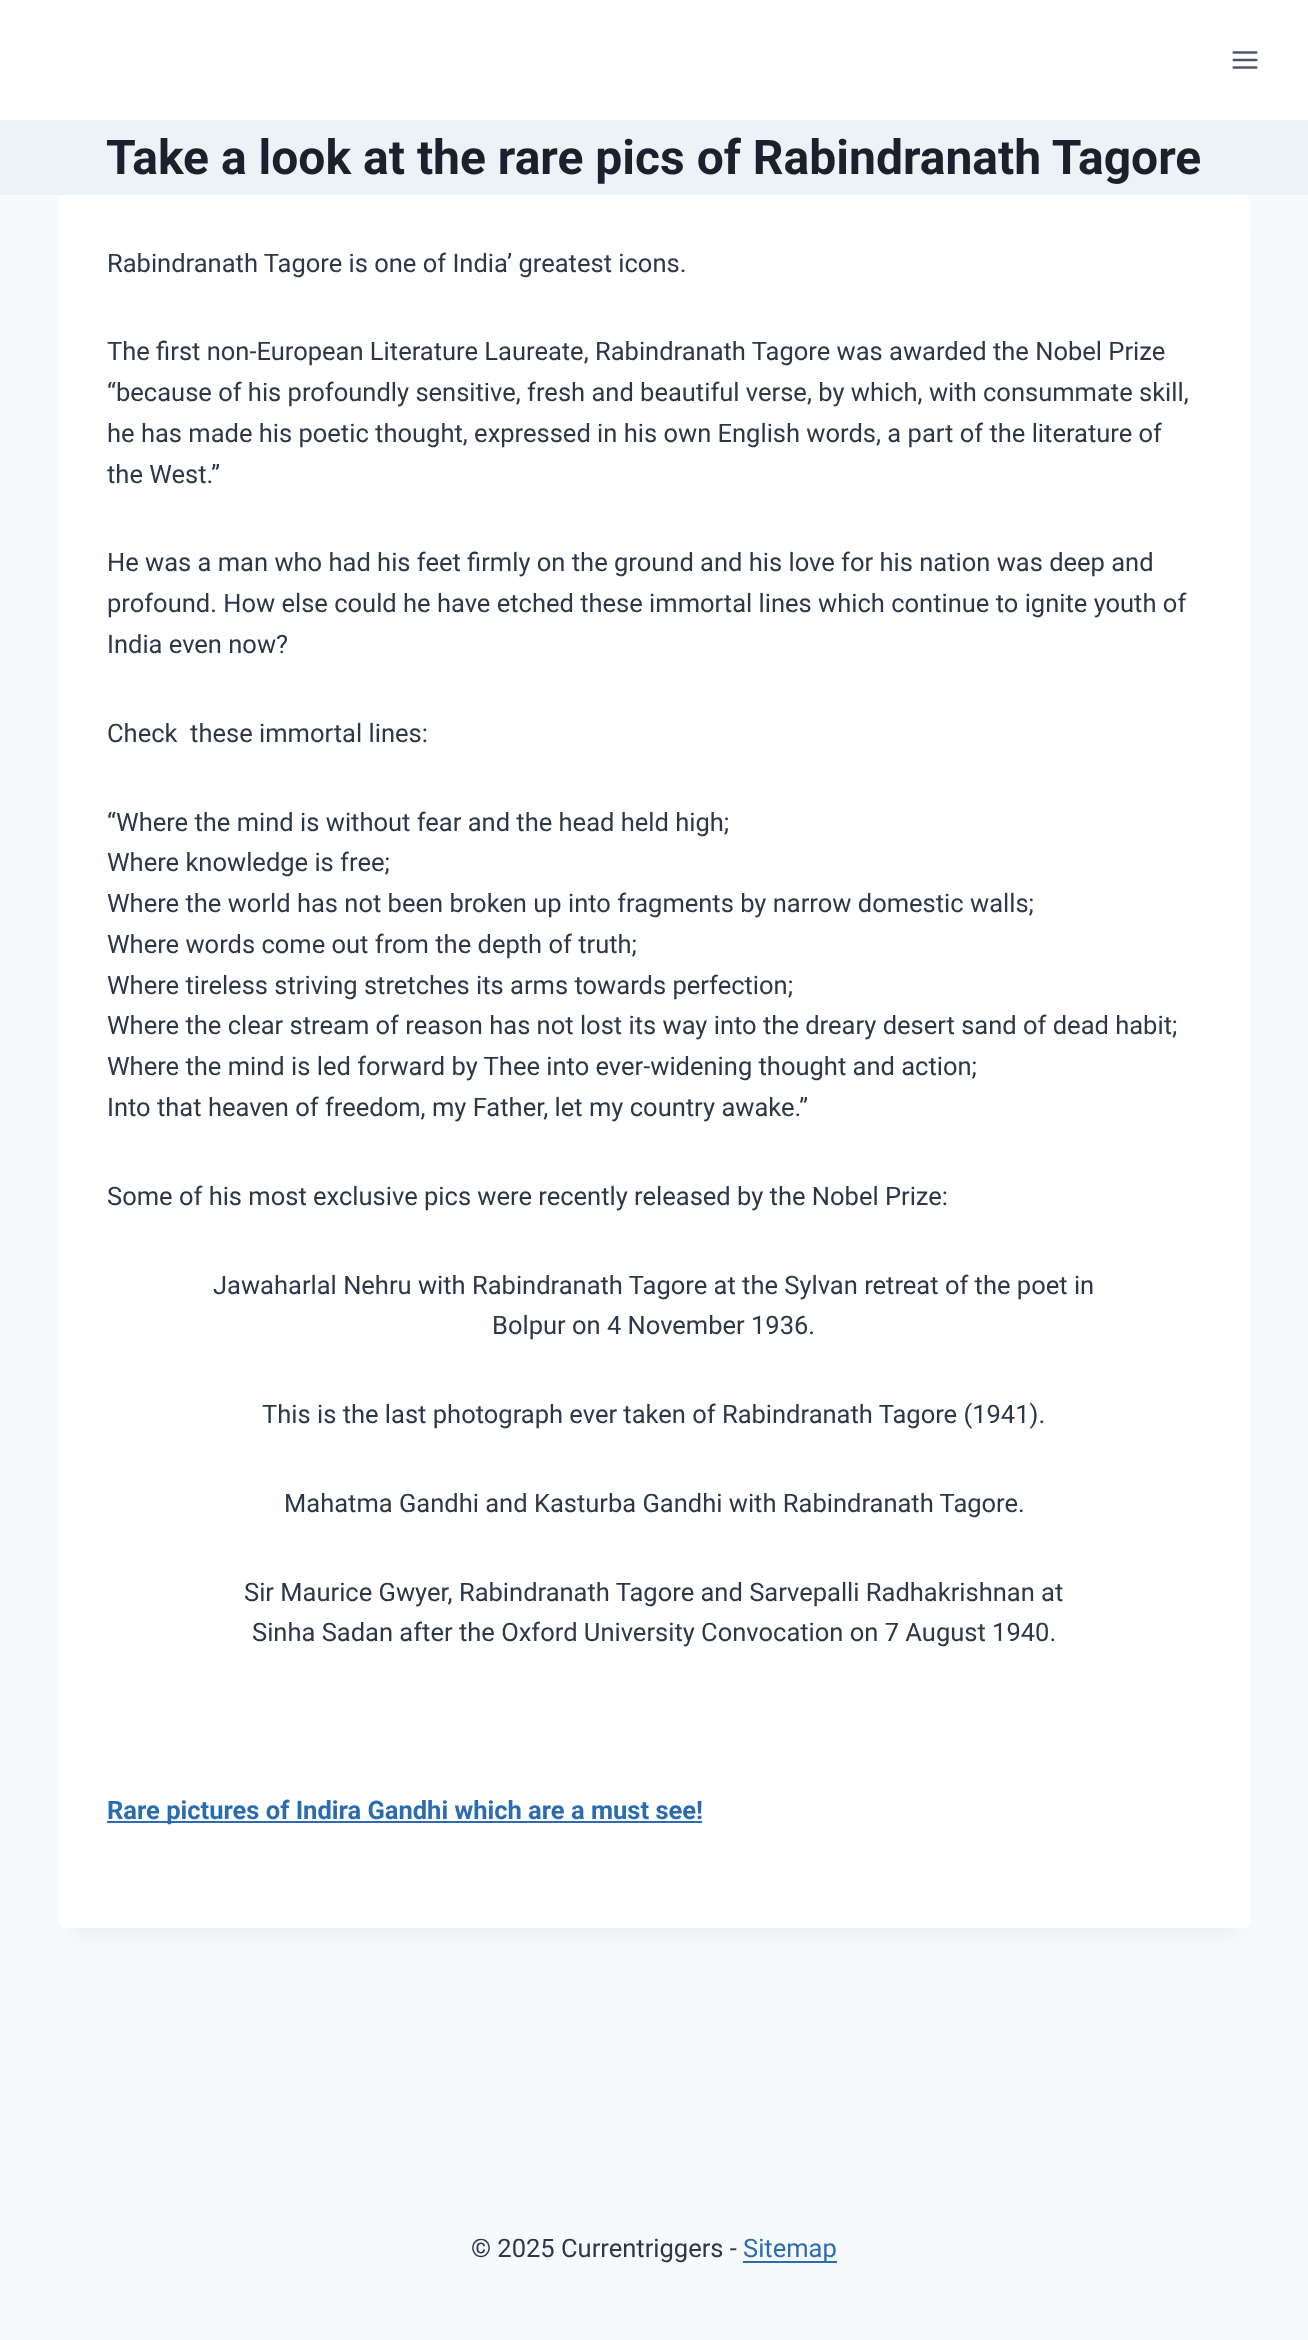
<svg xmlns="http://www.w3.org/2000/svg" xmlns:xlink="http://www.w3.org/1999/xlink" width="1308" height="2340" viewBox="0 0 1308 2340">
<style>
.cls-1{font:bold 48px Roboto;fill:#1a202c}
.cls-2{font:25.5px Roboto;fill:#2d3748}
.cls-3{font:bold 25.5px Roboto;fill:#2b6cb0}
.cls-4{font:25.5px Roboto;fill:#2b6cb0}
</style>
<rect width="100%" height="100%" fill="#f7fafc"/>
<rect fill="#ffffff" x="0" y="0" width="1308" height="120"/>
<image xlink:href="image0.png" x="1232" y="51" width="26" height="18"/>
<rect fill="#edf2f7" x="0" y="120" width="1308" height="75"/>
<rect fill="#000000" fill-opacity="0.05" filter="blur(11px)" x="74" y="233" width="1161" height="1702"/>
<rect fill="#ffffff" x="59" y="195" width="1191" height="1733" rx="6"/>
<rect fill="#2b6cb0" x="107" y="1821" width="595" height="2"/>
<rect fill="#2b6cb0" x="743" y="2261" width="94" height="2"/>
<text class="cls-1" x="106" y="174">Take a look at the rare pics of Rabindranath Tagore</text>
<text class="cls-2" x="107" y="272">Rabindranath Tagore is one of India’ greatest icons.</text>
<text class="cls-2"><tspan x="107" y="360">The first non-European Literature Laureate, Rabindranath Tagore was awarded the Nobel Prize</tspan><tspan x="107" y="401">“because of his profoundly sensitive, fresh and beautiful verse, by which, with consummate skill,</tspan><tspan x="107" y="442">he has made his poetic thought, expressed in his own English words, a part of the literature of</tspan><tspan x="107" y="483">the West.”</tspan></text>
<text class="cls-2"><tspan x="107" y="571">He was a man who had his feet firmly on the ground and his love for his nation was deep and</tspan><tspan x="107" y="612">profound. How else could he have etched these immortal lines which continue to ignite youth of</tspan><tspan x="107" y="653">India even now?</tspan></text>
<text class="cls-2" xml:space="preserve" x="107" y="742">Check  these immortal lines:</text>
<text class="cls-2"><tspan x="107" y="831">“Where the mind is without fear and the head held high;</tspan><tspan x="107" y="871">Where knowledge is free;</tspan><tspan x="107" y="912">Where the world has not been broken up into fragments by narrow domestic walls;</tspan><tspan x="107" y="953">Where words come out from the depth of truth;</tspan><tspan x="107" y="994">Where tireless striving stretches its arms towards perfection;</tspan><tspan x="107" y="1034">Where the clear stream of reason has not lost its way into the dreary desert sand of dead habit;</tspan><tspan x="107" y="1075">Where the mind is led forward by Thee into ever-widening thought and action;</tspan><tspan x="107" y="1116">Into that heaven of freedom, my Father, let my country awake.”</tspan></text>
<text class="cls-2" x="107" y="1205">Some of his most exclusive pics were recently released by the Nobel Prize:</text>
<text class="cls-2" x="213" y="1294">Jawaharlal Nehru with Rabindranath Tagore at the Sylvan retreat of the poet in</text>
<text class="cls-2" x="492" y="1334">Bolpur on 4 November 1936.</text>
<text class="cls-2" x="262" y="1423">This is the last photograph ever taken of Rabindranath Tagore (1941).</text>
<text class="cls-2" x="284" y="1512">Mahatma Gandhi and Kasturba Gandhi with Rabindranath Tagore.</text>
<text class="cls-2" x="244" y="1601">Sir Maurice Gwyer, Rabindranath Tagore and Sarvepalli Radhakrishnan at</text>
<text class="cls-2" x="252" y="1641">Sinha Sadan after the Oxford University Convocation on 7 August 1940.</text>
<text class="cls-3" x="107" y="1819">Rare pictures of Indira Gandhi which are a must see!</text>
<text class="cls-2" x="471" y="2257">© 2025 Currentriggers -</text>
<text class="cls-4" x="743" y="2257">Sitemap</text>
</svg>
